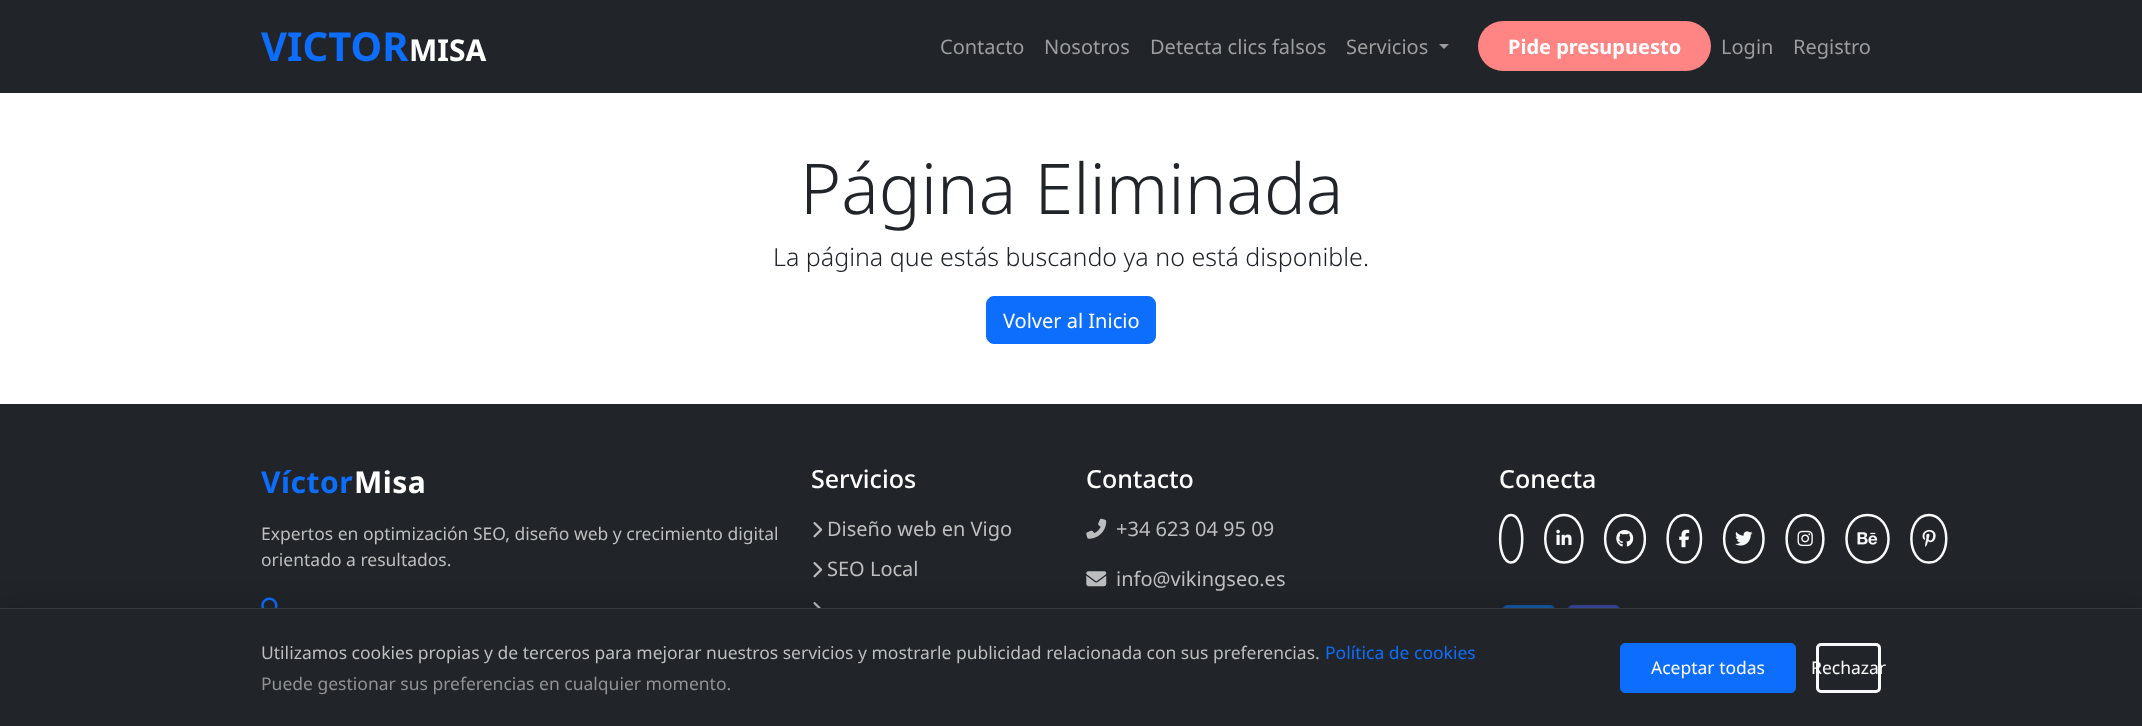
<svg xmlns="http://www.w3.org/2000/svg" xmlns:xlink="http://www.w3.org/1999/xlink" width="2142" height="726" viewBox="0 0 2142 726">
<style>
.cls-1{font:bold 40px Noto Sans;fill:#0d6efd}
.cls-2{font:bold 30px Noto Sans;fill:#ffffff}
.cls-3{font:20px Noto Sans;fill:#9b9d9f}
.cls-4{font:bold 20px Noto Sans;fill:#ffffff}
.cls-5{font:300 70px Noto Sans;fill:#212529}
.cls-6{font:300 25px Noto Sans;fill:#212529}
.cls-7{font:20px Noto Sans;fill:#ffffff}
.cls-8{font:bold 30px Noto Sans;letter-spacing:0.5px;fill:#0d6efd}
.cls-9{font:bold 30px Noto Sans;letter-spacing:0.5px;fill:#ffffff}
.cls-10{font:17.5px Noto Sans;fill:#bcbebf}
.cls-11{font:500 25px Noto Sans;fill:#ffffff}
.cls-12{font:20px Noto Sans;fill:#bcbebf}
.cls-13{font:17.5px Noto Sans;fill:#0d6efd}
.cls-14{font:17.5px Noto Sans;fill:#909294}
.cls-15{font:17.5px Noto Sans;fill:#ffffff}
.cls-16{font:17.5px Noto Sans;fill:#f8f9fa}
</style>
<rect width="100%" height="100%" fill="#ffffff"/>
<rect fill="#212529" x="0" y="0" width="2142" height="93"/>
<path fill="#9b9d9f" d="M1439 44H1449L1444 49Z"/>
<rect fill="#ff8484" x="1478" y="21" width="233" height="50" rx="25"/>
<rect fill="#0d6efd" stroke="#0d6efd" x="986.5" y="296.5" width="169" height="47" rx="7.5"/>
<rect fill="#212529" x="0" y="404" width="2142" height="204"/>
<image xlink:href="image0.png" x="261" y="597" width="17" height="11"/>
<image xlink:href="image1.png" x="813" y="522" width="10" height="16"/>
<image xlink:href="image1.png" x="813" y="562" width="10" height="16"/>
<image xlink:href="image2.png" x="813" y="602" width="8" height="6"/>
<image xlink:href="image3.png" x="1086" y="518" width="21" height="21"/>
<image xlink:href="image4.png" x="1086" y="571" width="21" height="16"/>
<path fill="none" stroke="#f8f9fa" stroke-width="2.5" d="M1511 515C1526 515 1526 562.5 1511 562.5C1496.5 562.5 1496.5 515 1511 515Z"/>
<path fill="none" stroke="#f8f9fa" stroke-width="2.5" d="M1564 515C1588.5 515 1588.5 562.5 1564 562.5C1539 562.5 1539 515 1564 515Z"/>
<image xlink:href="image5.png" x="1556" y="529" width="16" height="16"/>
<path fill="none" stroke="#f8f9fa" stroke-width="2.5" d="M1625 515C1651.5 515 1651.5 562.5 1625 562.5C1598.5 562.5 1598.5 515 1625 515Z"/>
<image xlink:href="image6.png" x="1616" y="530" width="18" height="17"/>
<path fill="none" stroke="#f8f9fa" stroke-width="2.5" d="M1684.5 515C1706.5 515 1706.5 562.5 1684.5 562.5C1662 562.5 1662 515 1684.5 515Z"/>
<image xlink:href="image7.png" x="1679" y="529" width="11" height="19"/>
<path fill="none" stroke="#f8f9fa" stroke-width="2.5" d="M1744 515C1770 515 1770 562.5 1744 562.5C1717.5 562.5 1717.5 515 1744 515Z"/>
<image xlink:href="image8.png" x="1735" y="531" width="18" height="15"/>
<path fill="none" stroke="#f8f9fa" stroke-width="2.5" d="M1805 515C1829.5 515 1829.5 562.5 1805 562.5C1780.5 562.5 1780.5 515 1805 515Z"/>
<image xlink:href="image9.png" x="1797" y="530" width="16" height="17"/>
<path fill="none" stroke="#f8f9fa" stroke-width="2.5" d="M1867.5 515C1895.5 515 1895.5 562.5 1867.5 562.5C1839.5 562.5 1839.5 515 1867.5 515Z"/>
<image xlink:href="image10.png" x="1857" y="532" width="21" height="13"/>
<path fill="none" stroke="#f8f9fa" stroke-width="2.5" d="M1929 515C1952 515 1952 562.5 1929 562.5C1905.5 562.5 1905.5 515 1929 515Z"/>
<image xlink:href="image11.png" x="1922" y="529" width="14" height="18"/>
<image xlink:href="image12.png" x="1502" y="604" width="54" height="4"/>
<image xlink:href="image13.png" x="1567" y="604" width="54" height="4"/>
<rect fill="#000000" fill-opacity="0.15" filter="blur(12.5px)" x="0" y="603" width="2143" height="118"/>
<rect fill="#212529" x="0" y="609" width="2142" height="117"/>
<rect fill="#373b3e" x="0" y="608" width="2142" height="1"/>
<rect fill="#0d6efd" stroke="#0d6efd" x="1620.5" y="643.5" width="175" height="49" rx="4.5"/>
<rect fill="none" stroke="#f8f9fa" stroke-width="3" x="1817.5" y="644.5" width="62" height="47" rx="3.5"/>
<text class="cls-1" x="261" y="61">VICTOR</text>
<text class="cls-2" x="409" y="61">MISA</text>
<text class="cls-3" x="940" y="54">Contacto</text>
<text class="cls-3" x="1044" y="54">Nosotros</text>
<text class="cls-3" x="1150" y="54">Detecta clics falsos</text>
<text class="cls-3" x="1346" y="54">Servicios</text>
<text class="cls-4" x="1508" y="54">Pide presupuesto</text>
<text class="cls-3" x="1721" y="54">Login</text>
<text class="cls-3" x="1793" y="54">Registro</text>
<text class="cls-5" x="800" y="214">Página Eliminada</text>
<text class="cls-6" x="773" y="266">La página que estás buscando ya no está disponible.</text>
<text class="cls-7" x="1003" y="328">Volver al Inicio</text>
<text class="cls-8" x="261" y="493">Víctor</text>
<text class="cls-9" x="354" y="493">Misa</text>
<text class="cls-10"><tspan x="261" y="540">Expertos en optimización SEO, diseño web y crecimiento digital</tspan><tspan x="261" y="566">orientado a resultados.</tspan></text>
<text class="cls-11" x="811" y="488">Servicios</text>
<text class="cls-12" x="827" y="536">Diseño web en Vigo</text>
<text class="cls-12" x="827" y="576">SEO Local</text>
<text class="cls-11" x="1086" y="488">Contacto</text>
<text class="cls-12" x="1116" y="536">+34 623 04 95 09</text>
<text class="cls-12" x="1116" y="586">info@vikingseo.es</text>
<text class="cls-11" x="1499" y="488">Conecta</text>
<text class="cls-10" x="261" y="659">Utilizamos cookies propias y de terceros para mejorar nuestros servicios y mostrarle publicidad relacionada con sus preferencias.</text>
<text class="cls-13" x="1325" y="659">Política de cookies</text>
<text class="cls-14" x="261" y="690">Puede gestionar sus preferencias en cualquier momento.</text>
<text class="cls-15" x="1651" y="674">Aceptar todas</text>
<text class="cls-16" x="1811" y="674">Rechazar</text>
</svg>
